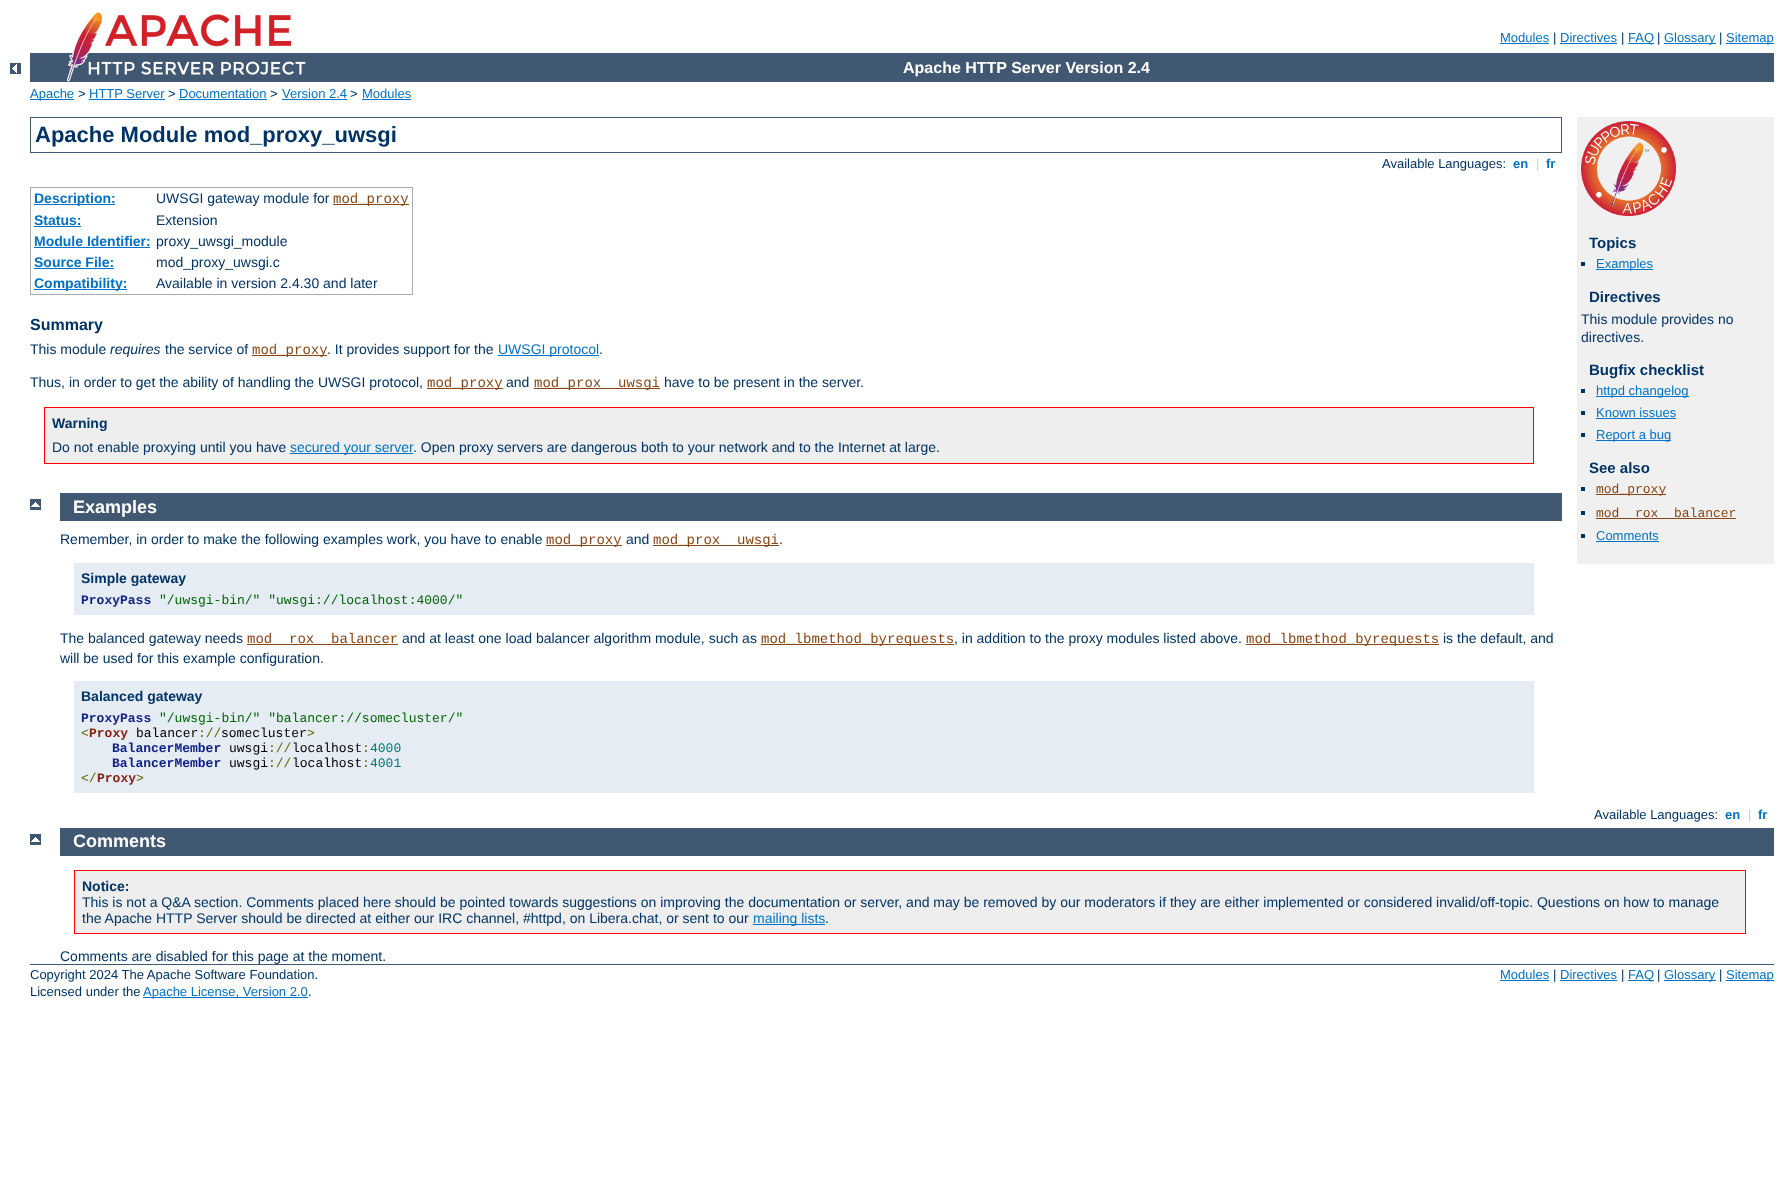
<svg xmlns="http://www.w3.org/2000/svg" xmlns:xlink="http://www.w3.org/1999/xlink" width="1788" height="1180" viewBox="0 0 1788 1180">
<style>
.cls-1{font:13px Liberation Sans;fill:#0073c7}
.cls-2{font:13px Liberation Sans;fill:#003366}
.cls-3{font:bold 16px Liberation Sans;fill:#ffffff}
.cls-4{font:bold 22px Liberation Sans;fill:#003366}
.cls-5{font:bold 13px Liberation Sans;fill:#0073c7}
.cls-6{font:13px Liberation Sans;fill:#cccccc}
.cls-7{font:bold 14px Liberation Sans;fill:#0073c7}
.cls-8{font:14px Liberation Sans;fill:#003366}
.cls-9{font:14px Liberation Mono;fill:#8b4513}
.cls-10{font:bold 16px Liberation Sans;fill:#003366}
.cls-11{font:italic 14px Liberation Sans;fill:#003366}
.cls-12{font:14px Liberation Sans;fill:#0073c7}
.cls-13{font:bold 14px Liberation Sans;fill:#003366}
.cls-14{font:bold 15px Liberation Sans;fill:#003366}
.cls-15{font:13px Liberation Mono;fill:#8b4513}
.cls-16{font:bold 18px Liberation Sans;fill:#ffffff}
.cls-17{font:bold 13px Liberation Mono;fill:#112288}
.cls-18{font:13px Liberation Mono;fill:#006600}
.cls-19{font:13px Liberation Mono;fill:#666600}
.cls-20{font:bold 13px Liberation Mono;fill:#882211}
.cls-21{font:13px Liberation Mono;fill:#000000}
.cls-22{font:13px Liberation Mono;fill:#007777}
</style>
<rect width="100%" height="100%" fill="#ffffff"/>
<image xlink:href="image0.png" x="10" y="63" width="11" height="11"/>
<rect fill="#405871" x="30" y="53" width="1744" height="29"/>
<image xlink:href="image1.png" x="67" y="12" width="239" height="70"/>
<rect fill="#0073c7" x="1500" y="43" width="49" height="1"/>
<rect fill="#0073c7" x="1560" y="43" width="57" height="1"/>
<rect fill="#0073c7" x="1628" y="43" width="26" height="1"/>
<rect fill="#0073c7" x="1664" y="43" width="52" height="1"/>
<rect fill="#0073c7" x="1726" y="43" width="48" height="1"/>
<rect fill="#0073c7" x="30" y="99" width="44" height="1"/>
<rect fill="#0073c7" x="89" y="99" width="76" height="1"/>
<rect fill="#0073c7" x="179" y="99" width="88" height="1"/>
<rect fill="#0073c7" x="282" y="99" width="65" height="1"/>
<rect fill="#0073c7" x="362" y="99" width="49" height="1"/>
<rect fill="none" stroke="#405871" x="30.5" y="117.5" width="1531" height="35"/>
<rect fill="#aaaaaa" x="30" y="187" width="383" height="1"/>
<rect fill="#aaaaaa" x="412" y="187" width="1" height="108"/>
<rect fill="#aaaaaa" x="30" y="294" width="383" height="1"/>
<rect fill="#aaaaaa" x="30" y="187" width="1" height="108"/>
<rect fill="#0073c7" x="34" y="204" width="81" height="1"/>
<rect fill="#8b4513" x="333" y="204" width="76" height="1"/>
<rect fill="#0073c7" x="34" y="226" width="47" height="1"/>
<rect fill="#0073c7" x="34" y="247" width="116" height="1"/>
<rect fill="#0073c7" x="34" y="268" width="80" height="1"/>
<rect fill="#0073c7" x="34" y="289" width="93" height="1"/>
<rect fill="#8b4513" x="252" y="355" width="75" height="1"/>
<rect fill="#0073c7" x="498" y="355" width="101" height="1"/>
<rect fill="#8b4513" x="427" y="388" width="76" height="1"/>
<rect fill="#8b4513" x="534" y="388" width="126" height="1"/>
<rect fill="#eeeeee" stroke="#ff0000" x="44.5" y="407.5" width="1489" height="56"/>
<rect fill="#0073c7" x="290" y="453" width="123" height="1"/>
<rect fill="#f0f0f0" x="1577" y="117" width="197" height="447"/>
<image xlink:href="image2.png" x="1581" y="121" width="95" height="95"/>
<rect fill="#003366" x="1581" y="262" width="4" height="4"/>
<rect fill="#0073c7" x="1596" y="269" width="57" height="1"/>
<rect fill="#003366" x="1581" y="389" width="4" height="4"/>
<rect fill="#0073c7" x="1596" y="396" width="93" height="1"/>
<rect fill="#003366" x="1581" y="411" width="4" height="4"/>
<rect fill="#0073c7" x="1596" y="418" width="80" height="1"/>
<rect fill="#003366" x="1581" y="433" width="4" height="4"/>
<rect fill="#0073c7" x="1596" y="440" width="75" height="1"/>
<rect fill="#003366" x="1581" y="487" width="4" height="4"/>
<rect fill="#8b4513" x="1596" y="494" width="70" height="1"/>
<rect fill="#003366" x="1581" y="511" width="4" height="4"/>
<rect fill="#8b4513" x="1596" y="518" width="140" height="1"/>
<rect fill="#003366" x="1581" y="534" width="4" height="4"/>
<rect fill="#0073c7" x="1596" y="541" width="63" height="1"/>
<image xlink:href="image3.png" x="30" y="499" width="11" height="11"/>
<rect fill="#405871" x="60" y="493" width="1502" height="28"/>
<rect fill="#8b4513" x="546" y="545" width="76" height="1"/>
<rect fill="#8b4513" x="653" y="545" width="126" height="1"/>
<rect fill="#e5ecf3" x="74" y="563" width="1460" height="52"/>
<rect fill="#8b4513" x="247" y="644" width="151" height="1"/>
<rect fill="#8b4513" x="761" y="644" width="193" height="1"/>
<rect fill="#8b4513" x="1246" y="644" width="193" height="1"/>
<rect fill="#e5ecf3" x="74" y="681" width="1460" height="112"/>
<image xlink:href="image3.png" x="30" y="834" width="11" height="11"/>
<rect fill="#405871" x="60" y="828" width="1714" height="28"/>
<rect fill="#eeeeee" stroke="#ff0000" x="74.5" y="870.5" width="1671" height="63"/>
<rect fill="#0073c7" x="753" y="924" width="72" height="1"/>
<rect fill="#405871" x="30" y="964" width="1744" height="1"/>
<rect fill="#0073c7" x="143" y="997" width="165" height="1"/>
<rect fill="#0073c7" x="1500" y="980" width="49" height="1"/>
<rect fill="#0073c7" x="1560" y="980" width="57" height="1"/>
<rect fill="#0073c7" x="1628" y="980" width="26" height="1"/>
<rect fill="#0073c7" x="1664" y="980" width="52" height="1"/>
<rect fill="#0073c7" x="1726" y="980" width="48" height="1"/>
<text class="cls-1" x="1500" y="42">Modules</text>
<text class="cls-2" x="1553" y="42">|</text>
<text class="cls-1" x="1560" y="42">Directives</text>
<text class="cls-2" x="1621" y="42">|</text>
<text class="cls-1" x="1628" y="42">FAQ</text>
<text class="cls-2" x="1657" y="42">|</text>
<text class="cls-1" x="1664" y="42">Glossary</text>
<text class="cls-2" x="1719" y="42">|</text>
<text class="cls-1" x="1726" y="42">Sitemap</text>
<text class="cls-3" x="903" y="73">Apache HTTP Server Version 2.4</text>
<text class="cls-1" x="30" y="98">Apache</text>
<text class="cls-2" x="78" y="98">&gt;</text>
<text class="cls-1" x="89" y="98">HTTP Server</text>
<text class="cls-2" x="168" y="98">&gt;</text>
<text class="cls-1" x="179" y="98">Documentation</text>
<text class="cls-2" x="270" y="98">&gt;</text>
<text class="cls-1" x="282" y="98">Version 2.4</text>
<text class="cls-2" x="350" y="98">&gt;</text>
<text class="cls-1" x="362" y="98">Modules</text>
<text class="cls-4" x="35" y="142">Apache Module mod_proxy_uwsgi</text>
<text class="cls-2" x="1382" y="168">Available Languages:</text>
<text class="cls-5" x="1513" y="168">en</text>
<text class="cls-6" x="1536" y="168">|</text>
<text class="cls-5" x="1546" y="168">fr</text>
<text class="cls-7" x="34" y="203">Description:</text>
<text class="cls-8" x="156" y="203">UWSGI gateway module for</text>
<text class="cls-9" x="333" y="203">mod_proxy</text>
<text class="cls-7" x="34" y="225">Status:</text>
<text class="cls-8" x="156" y="225">Extension</text>
<text class="cls-7" x="34" y="246">Module Identifier:</text>
<text class="cls-8" x="156" y="246">proxy_uwsgi_module</text>
<text class="cls-7" x="34" y="267">Source File:</text>
<text class="cls-8" x="156" y="267">mod_proxy_uwsgi.c</text>
<text class="cls-7" x="34" y="288">Compatibility:</text>
<text class="cls-8" x="156" y="288">Available in version 2.4.30 and later</text>
<text class="cls-10" x="30" y="330">Summary</text>
<text class="cls-8" x="30" y="354">This module</text>
<text class="cls-11" x="110" y="354">requires</text>
<text class="cls-8" x="165" y="354">the service of</text>
<text class="cls-9" x="252" y="354">mod_proxy</text>
<text class="cls-8" x="327" y="354">. It provides support for the</text>
<text class="cls-12" x="498" y="354">UWSGI protocol</text>
<text class="cls-8" x="599" y="354">.</text>
<text class="cls-8" x="30" y="387">Thus, in order to get the ability of handling the UWSGI protocol,</text>
<text class="cls-9" x="427" y="387">mod_proxy</text>
<text class="cls-8" x="506" y="387">and</text>
<text class="cls-9" x="534" y="387">mod_prox</text>
<text class="cls-9" x="618" y="387">uwsgi</text>
<text class="cls-8" x="664" y="387">have to be present in the server.</text>
<text class="cls-13" x="52" y="428">Warning</text>
<text class="cls-8" x="52" y="452">Do not enable proxying until you have</text>
<text class="cls-12" x="290" y="452">secured your server</text>
<text class="cls-8" x="413" y="452">. Open proxy servers are dangerous both to your network and to the Internet at large.</text>
<text class="cls-14" x="1589" y="248">Topics</text>
<text class="cls-1" x="1596" y="268">Examples</text>
<text class="cls-14" x="1589" y="302">Directives</text>
<text class="cls-8"><tspan x="1581" y="324">This module provides no</tspan><tspan x="1581" y="342">directives.</tspan></text>
<text class="cls-14" x="1589" y="375">Bugfix checklist</text>
<text class="cls-1"><tspan x="1596" y="395">httpd changelog</tspan><tspan x="1596" y="417">Known issues</tspan><tspan x="1596" y="439">Report a bug</tspan></text>
<text class="cls-14" x="1589" y="473">See also</text>
<text class="cls-15"><tspan x="1596" y="493">mod_proxy</tspan><tspan x="1596" y="517">mod</tspan></text>
<text class="cls-15" x="1635" y="517">rox</text>
<text class="cls-15" x="1674" y="517">balancer</text>
<text class="cls-1" x="1596" y="540">Comments</text>
<text class="cls-16" x="73" y="513">Examples</text>
<text class="cls-8" x="60" y="544">Remember, in order to make the following examples work, you have to enable</text>
<text class="cls-9" x="546" y="544">mod_proxy</text>
<text class="cls-8" x="626" y="544">and</text>
<text class="cls-9" x="653" y="544">mod_prox</text>
<text class="cls-9" x="737" y="544">uwsgi</text>
<text class="cls-8" x="779" y="544">.</text>
<text class="cls-13" x="81" y="583">Simple gateway</text>
<text class="cls-17" x="81" y="604">ProxyPass</text>
<text class="cls-18" x="159" y="604">"/uwsgi-bin/" "uwsgi://localhost:4000/"</text>
<text class="cls-8" x="60" y="643">The balanced gateway needs</text>
<text class="cls-9" x="247" y="643">mod</text>
<text class="cls-9" x="289" y="643">rox</text>
<text class="cls-9" x="331" y="643">balancer</text>
<text class="cls-8" x="402" y="643">and at least one load balancer algorithm module, such as</text>
<text class="cls-9" x="761" y="643">mod_lbmethod_byrequests</text>
<text class="cls-8" x="954" y="643">, in addition to the proxy modules listed above.</text>
<text class="cls-9" x="1246" y="643">mod_lbmethod_byrequests</text>
<text class="cls-8" x="1443" y="643">is the default, and</text>
<text class="cls-8" x="60" y="663">will be used for this example configuration.</text>
<text class="cls-13" x="81" y="701">Balanced gateway</text>
<text class="cls-17" x="81" y="722">ProxyPass</text>
<text class="cls-18" x="159" y="722">"/uwsgi-bin/" "balancer://somecluster/"</text>
<text class="cls-19" x="81" y="737">&lt;</text>
<text class="cls-20" x="89" y="737">Proxy</text>
<text class="cls-21" x="136" y="737">balancer</text>
<text class="cls-19" x="198" y="737">://</text>
<text class="cls-21" x="221" y="737">somecluster</text>
<text class="cls-19" x="307" y="737">&gt;</text>
<text class="cls-17" x="112" y="752">BalancerMember</text>
<text class="cls-21" x="229" y="752">uwsgi</text>
<text class="cls-19" x="268" y="752">://</text>
<text class="cls-21" x="292" y="752">localhost</text>
<text class="cls-19" x="362" y="752">:</text>
<text class="cls-22" x="370" y="752">4000</text>
<text class="cls-17" x="112" y="767">BalancerMember</text>
<text class="cls-21" x="229" y="767">uwsgi</text>
<text class="cls-19" x="268" y="767">://</text>
<text class="cls-21" x="292" y="767">localhost</text>
<text class="cls-19" x="362" y="767">:</text>
<text class="cls-22" x="370" y="767">4001</text>
<text class="cls-19" x="81" y="782">&lt;/</text>
<text class="cls-20" x="97" y="782">Proxy</text>
<text class="cls-19" x="136" y="782">&gt;</text>
<text class="cls-2" x="1594" y="819">Available Languages:</text>
<text class="cls-5" x="1725" y="819">en</text>
<text class="cls-6" x="1748" y="819">|</text>
<text class="cls-5" x="1758" y="819">fr</text>
<text class="cls-16" x="73" y="847">Comments</text>
<text class="cls-13" x="82" y="891">Notice:</text>
<text class="cls-8"><tspan x="82" y="907">This is not a Q&amp;A section. Comments placed here should be pointed towards suggestions on improving the documentation or server, and may be removed by our moderators if they are either implemented or considered invalid/off-topic. Questions on how to manage</tspan><tspan x="82" y="923">the Apache HTTP Server should be directed at either our IRC channel, #httpd, on Libera.chat, or sent to our</tspan></text>
<text class="cls-12" x="753" y="923">mailing lists</text>
<text class="cls-8" x="825" y="923">.</text>
<text class="cls-8" x="60" y="961">Comments are disabled for this page at the moment.</text>
<text class="cls-2"><tspan x="30" y="979">Copyright 2024 The Apache Software Foundation.</tspan><tspan x="30" y="996">Licensed under the</tspan></text>
<text class="cls-1" x="143" y="996">Apache License, Version 2.0</text>
<text class="cls-2" x="308" y="996">.</text>
<text class="cls-1" x="1500" y="979">Modules</text>
<text class="cls-2" x="1553" y="979">|</text>
<text class="cls-1" x="1560" y="979">Directives</text>
<text class="cls-2" x="1621" y="979">|</text>
<text class="cls-1" x="1628" y="979">FAQ</text>
<text class="cls-2" x="1657" y="979">|</text>
<text class="cls-1" x="1664" y="979">Glossary</text>
<text class="cls-2" x="1719" y="979">|</text>
<text class="cls-1" x="1726" y="979">Sitemap</text>
</svg>
